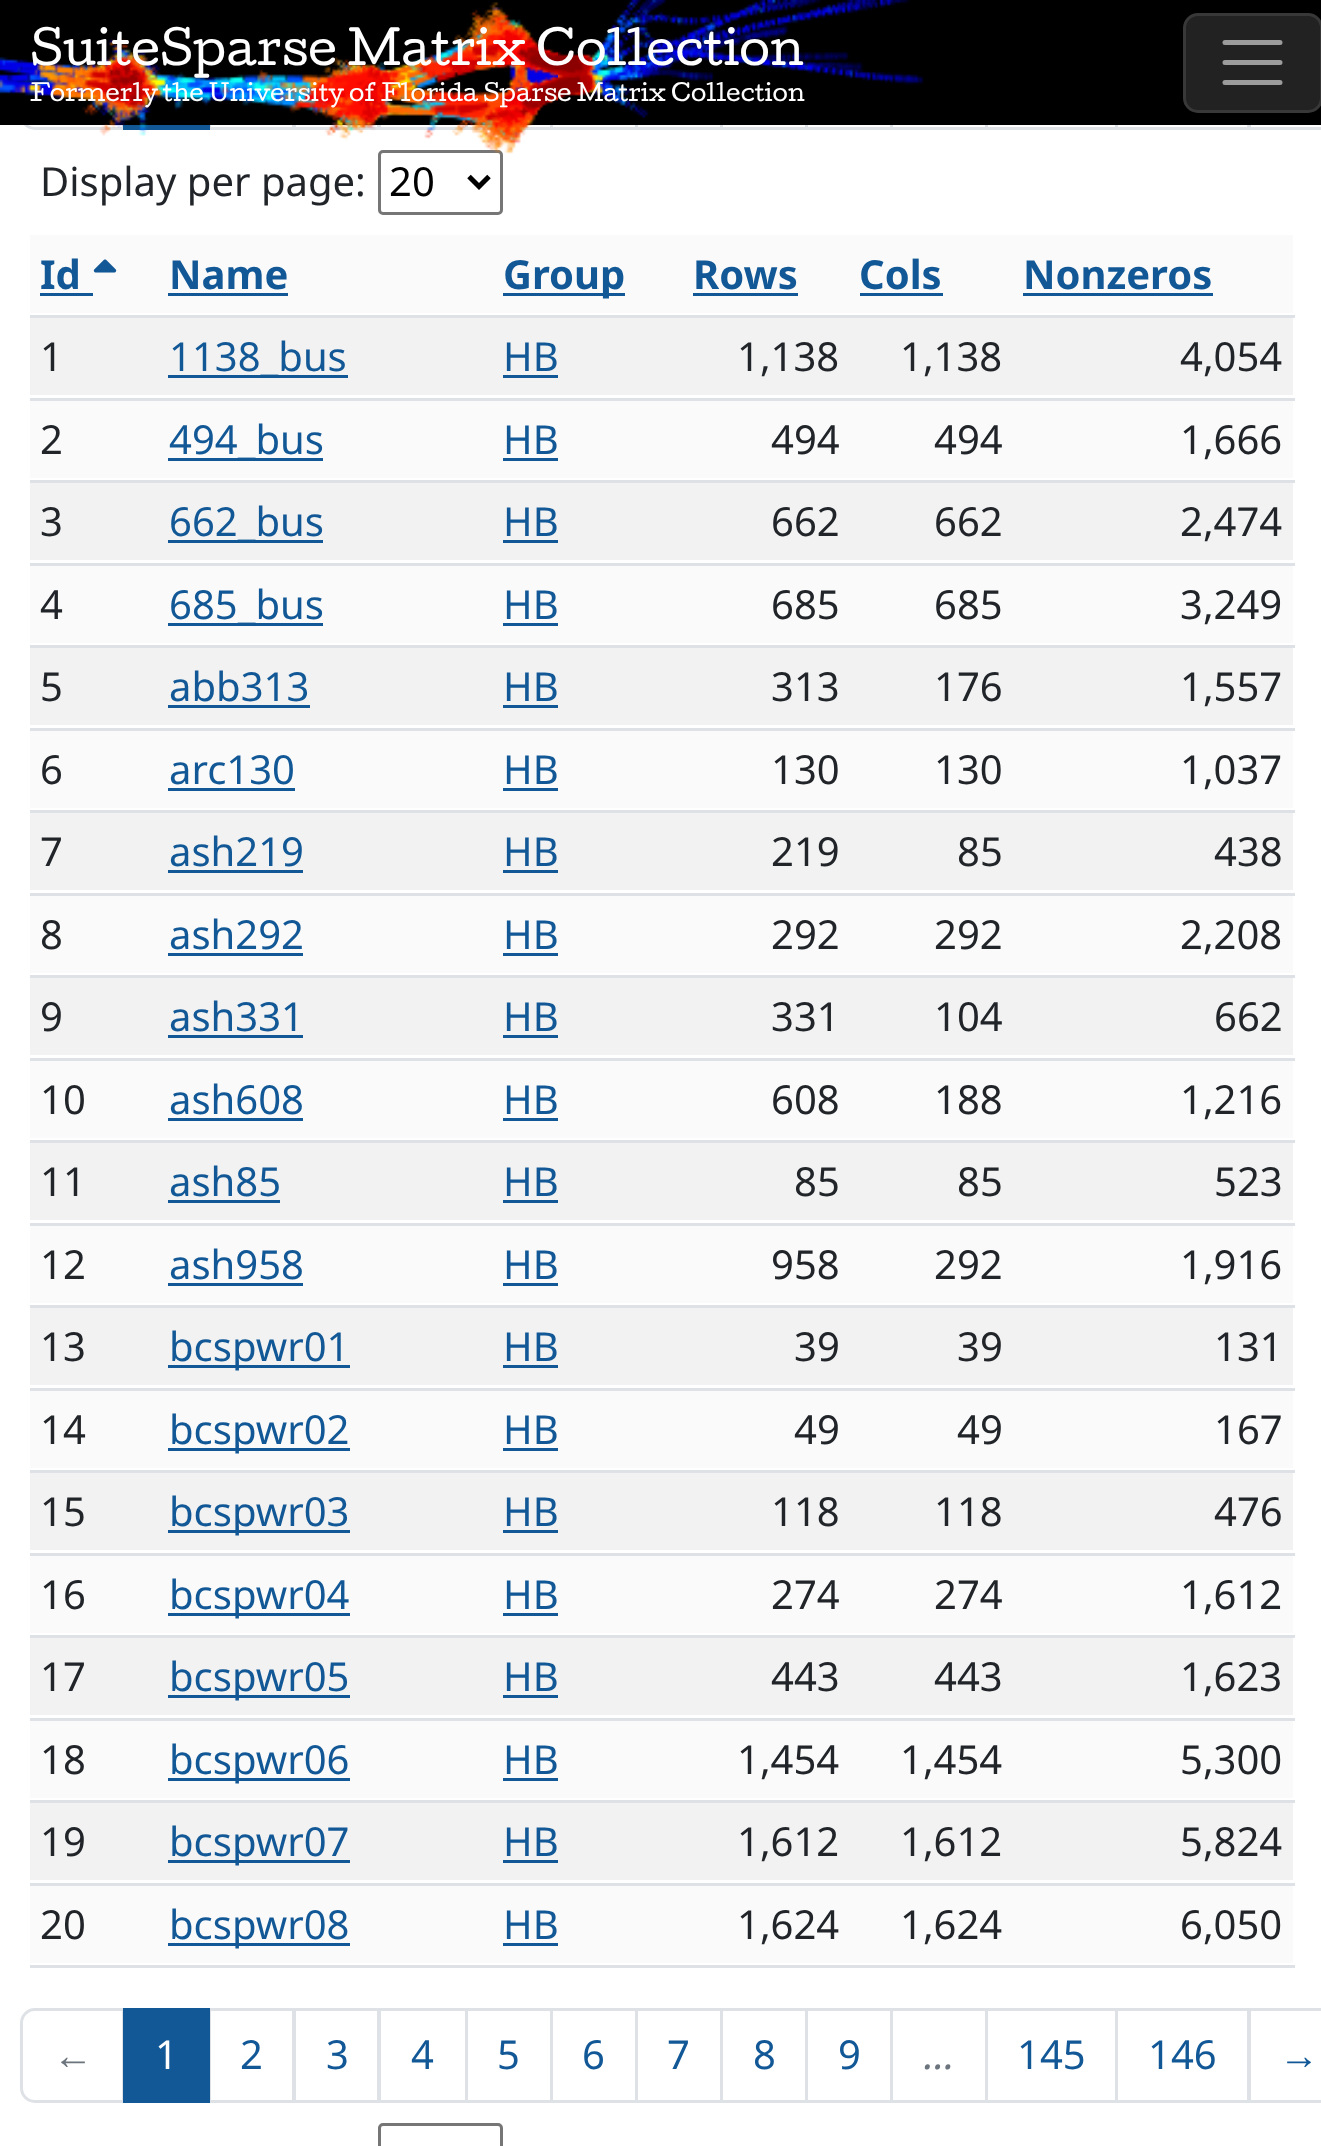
<svg xmlns="http://www.w3.org/2000/svg" xmlns:xlink="http://www.w3.org/1999/xlink" width="1321" height="2146" viewBox="0 0 1321 2146">
<style>
.cls-1{font:45px Cutive;fill:#ffffff}
.cls-2{font:22.5px Cutive;fill:#ffffff}
.cls-3{font:40px Noto Sans;fill:#212529}
.cls-4{font:40px Noto Sans;fill:#000000}
.cls-5{font:bold 40px Noto Sans;fill:#125896}
.cls-6{font:40px Noto Sans;fill:#125896}
.cls-7{font:40px Liberation Sans;fill:#6c757d}
.cls-8{font:40px Noto Sans;fill:#ffffff}
.cls-9{font:italic 40px Noto Sans;fill:#6c757d}
.cls-10{font:40px Liberation Sans;fill:#125896}
</style>
<rect width="100%" height="100%" fill="#ffffff"/>
<path fill="none" stroke="#dee2e6" stroke-width="3" d="M35 36.5H123.5V128.5H35C27.5 128.5 21.5 122.5 21.5 115V50C21.5 42.5 27.5 36.5 35 36.5Z"/>
<rect fill="none" stroke="#dee2e6" stroke-width="3" x="209.5" y="36.5" width="84" height="92"/>
<rect fill="none" stroke="#dee2e6" stroke-width="3" x="294.5" y="36.5" width="84" height="92"/>
<rect fill="none" stroke="#dee2e6" stroke-width="3" x="379.5" y="36.5" width="87" height="92"/>
<rect fill="none" stroke="#dee2e6" stroke-width="3" x="466.5" y="36.5" width="85" height="92"/>
<rect fill="none" stroke="#dee2e6" stroke-width="3" x="551.5" y="36.5" width="85" height="92"/>
<rect fill="none" stroke="#dee2e6" stroke-width="3" x="636.5" y="36.5" width="85" height="92"/>
<rect fill="none" stroke="#dee2e6" stroke-width="3" x="721.5" y="36.5" width="85" height="92"/>
<rect fill="none" stroke="#dee2e6" stroke-width="3" x="806.5" y="36.5" width="85" height="92"/>
<rect fill="none" stroke="#dee2e6" stroke-width="3" x="891.5" y="36.5" width="95" height="92"/>
<rect fill="none" stroke="#dee2e6" stroke-width="3" x="986.5" y="36.5" width="130" height="92"/>
<rect fill="none" stroke="#dee2e6" stroke-width="3" x="1116.5" y="36.5" width="132" height="92"/>
<rect fill="none" stroke="#dee2e6" stroke-width="3" x="1249.5" y="36.5" width="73" height="92"/>
<rect fill="#000000" x="0" y="0" width="1321" height="125"/>
<rect fill="#125896" x="123" y="125" width="87" height="5"/>
<rect fill="none" stroke="#767676" stroke-width="3" x="379.5" y="151.5" width="122" height="62" rx="3.5"/>
<image xlink:href="image0.png" x="0" y="0" width="924" height="154"/>
<rect fill="#222222" x="1183" y="13" width="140" height="100" rx="15"/>
<rect fill="none" stroke="#ffffff" stroke-opacity="0.1" stroke-width="3" x="1184.5" y="14.5" width="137" height="97" rx="13.5"/>
<path fill="none" stroke="#9c9c9c" stroke-width="5" stroke-linecap="round" d="M1225 42.5H1280M1225 62.5H1280M1225 82.5H1280"/>
<path fill="none" stroke="#000000" stroke-width="5" d="M469 176.5L479 186.5L489 176.5"/>
<rect fill="#fafafa" x="30" y="235" width="1263" height="78"/>
<rect fill="#125896" x="40" y="293" width="53" height="3"/>
<image xlink:href="image1.png" x="93" y="259" width="24" height="14"/>
<rect fill="#125896" x="168" y="293" width="120" height="3"/>
<rect fill="#125896" x="503" y="293" width="122" height="3"/>
<rect fill="#125896" x="693" y="293" width="105" height="3"/>
<rect fill="#125896" x="860" y="293" width="83" height="3"/>
<rect fill="#dee2e6" x="30" y="315" width="1265" height="3"/>
<rect fill="#125896" x="1023" y="293" width="190" height="3"/>
<rect fill="#f2f2f2" x="30" y="318" width="1263" height="77"/>
<rect fill="#125896" x="168" y="375" width="180" height="3"/>
<rect fill="#125896" x="503" y="375" width="55" height="3"/>
<rect fill="#dee2e6" x="30" y="398" width="1265" height="3"/>
<rect fill="#fafafa" x="30" y="401" width="1263" height="77"/>
<rect fill="#125896" x="168" y="458" width="155" height="3"/>
<rect fill="#125896" x="503" y="458" width="55" height="3"/>
<rect fill="#dee2e6" x="30" y="480" width="1265" height="3"/>
<rect fill="#f2f2f2" x="30" y="483" width="1263" height="77"/>
<rect fill="#125896" x="168" y="540" width="155" height="3"/>
<rect fill="#125896" x="503" y="540" width="55" height="3"/>
<rect fill="#dee2e6" x="30" y="563" width="1265" height="3"/>
<rect fill="#fafafa" x="30" y="566" width="1263" height="77"/>
<rect fill="#125896" x="168" y="623" width="155" height="3"/>
<rect fill="#125896" x="503" y="623" width="55" height="3"/>
<rect fill="#dee2e6" x="30" y="645" width="1265" height="3"/>
<rect fill="#f2f2f2" x="30" y="648" width="1263" height="77"/>
<rect fill="#125896" x="168" y="705" width="142" height="3"/>
<rect fill="#125896" x="503" y="705" width="55" height="3"/>
<rect fill="#dee2e6" x="30" y="728" width="1265" height="3"/>
<rect fill="#fafafa" x="30" y="731" width="1263" height="77"/>
<rect fill="#125896" x="168" y="788" width="127" height="3"/>
<rect fill="#125896" x="503" y="788" width="55" height="3"/>
<rect fill="#dee2e6" x="30" y="810" width="1265" height="3"/>
<rect fill="#f2f2f2" x="30" y="813" width="1263" height="77"/>
<rect fill="#125896" x="168" y="870" width="135" height="3"/>
<rect fill="#125896" x="503" y="870" width="55" height="3"/>
<rect fill="#dee2e6" x="30" y="893" width="1265" height="3"/>
<rect fill="#fafafa" x="30" y="896" width="1263" height="77"/>
<rect fill="#125896" x="168" y="953" width="135" height="3"/>
<rect fill="#125896" x="503" y="953" width="55" height="3"/>
<rect fill="#dee2e6" x="30" y="975" width="1265" height="3"/>
<rect fill="#f2f2f2" x="30" y="978" width="1263" height="77"/>
<rect fill="#125896" x="168" y="1035" width="135" height="3"/>
<rect fill="#125896" x="503" y="1035" width="55" height="3"/>
<rect fill="#dee2e6" x="30" y="1058" width="1265" height="3"/>
<rect fill="#fafafa" x="30" y="1061" width="1263" height="77"/>
<rect fill="#125896" x="168" y="1118" width="135" height="3"/>
<rect fill="#125896" x="503" y="1118" width="55" height="3"/>
<rect fill="#dee2e6" x="30" y="1140" width="1265" height="3"/>
<rect fill="#f2f2f2" x="30" y="1143" width="1263" height="77"/>
<rect fill="#125896" x="168" y="1200" width="112" height="3"/>
<rect fill="#125896" x="503" y="1200" width="55" height="3"/>
<rect fill="#dee2e6" x="30" y="1223" width="1265" height="3"/>
<rect fill="#fafafa" x="30" y="1226" width="1263" height="77"/>
<rect fill="#125896" x="168" y="1283" width="135" height="3"/>
<rect fill="#125896" x="503" y="1283" width="55" height="3"/>
<rect fill="#dee2e6" x="30" y="1305" width="1265" height="3"/>
<rect fill="#f2f2f2" x="30" y="1308" width="1263" height="77"/>
<rect fill="#125896" x="168" y="1365" width="182" height="3"/>
<rect fill="#125896" x="503" y="1365" width="55" height="3"/>
<rect fill="#dee2e6" x="30" y="1388" width="1265" height="3"/>
<rect fill="#fafafa" x="30" y="1391" width="1263" height="77"/>
<rect fill="#125896" x="168" y="1448" width="182" height="3"/>
<rect fill="#125896" x="503" y="1448" width="55" height="3"/>
<rect fill="#dee2e6" x="30" y="1470" width="1265" height="3"/>
<rect fill="#f2f2f2" x="30" y="1473" width="1263" height="77"/>
<rect fill="#125896" x="168" y="1530" width="182" height="3"/>
<rect fill="#125896" x="503" y="1530" width="55" height="3"/>
<rect fill="#dee2e6" x="30" y="1553" width="1265" height="3"/>
<rect fill="#fafafa" x="30" y="1556" width="1263" height="77"/>
<rect fill="#125896" x="168" y="1613" width="182" height="3"/>
<rect fill="#125896" x="503" y="1613" width="55" height="3"/>
<rect fill="#dee2e6" x="30" y="1635" width="1265" height="3"/>
<rect fill="#f2f2f2" x="30" y="1638" width="1263" height="77"/>
<rect fill="#125896" x="168" y="1695" width="182" height="3"/>
<rect fill="#125896" x="503" y="1695" width="55" height="3"/>
<rect fill="#dee2e6" x="30" y="1718" width="1265" height="3"/>
<rect fill="#fafafa" x="30" y="1721" width="1263" height="77"/>
<rect fill="#125896" x="168" y="1778" width="182" height="3"/>
<rect fill="#125896" x="503" y="1778" width="55" height="3"/>
<rect fill="#dee2e6" x="30" y="1800" width="1265" height="3"/>
<rect fill="#f2f2f2" x="30" y="1803" width="1263" height="77"/>
<rect fill="#125896" x="168" y="1860" width="182" height="3"/>
<rect fill="#125896" x="503" y="1860" width="55" height="3"/>
<rect fill="#dee2e6" x="30" y="1883" width="1265" height="3"/>
<rect fill="#fafafa" x="30" y="1886" width="1263" height="77"/>
<rect fill="#125896" x="168" y="1943" width="182" height="3"/>
<rect fill="#125896" x="503" y="1943" width="55" height="3"/>
<rect fill="#dee2e6" x="30" y="1965" width="1265" height="3"/>
<path fill="none" stroke="#dee2e6" stroke-width="3" d="M35 2009.5H123.5V2101.5H35C27.5 2101.5 21.5 2095.5 21.5 2088V2023C21.5 2015.5 27.5 2009.5 35 2009.5Z"/>
<rect fill="none" stroke="#dee2e6" stroke-width="3" x="209.5" y="2009.5" width="84" height="92"/>
<rect fill="#125896" x="123" y="2008" width="87" height="95"/>
<rect fill="none" stroke="#dee2e6" stroke-width="3" x="294.5" y="2009.5" width="84" height="92"/>
<rect fill="none" stroke="#dee2e6" stroke-width="3" x="379.5" y="2009.5" width="87" height="92"/>
<rect fill="none" stroke="#dee2e6" stroke-width="3" x="466.5" y="2009.5" width="85" height="92"/>
<rect fill="none" stroke="#dee2e6" stroke-width="3" x="551.5" y="2009.5" width="85" height="92"/>
<rect fill="none" stroke="#dee2e6" stroke-width="3" x="636.5" y="2009.5" width="85" height="92"/>
<rect fill="none" stroke="#dee2e6" stroke-width="3" x="721.5" y="2009.5" width="85" height="92"/>
<rect fill="none" stroke="#dee2e6" stroke-width="3" x="806.5" y="2009.5" width="85" height="92"/>
<rect fill="none" stroke="#dee2e6" stroke-width="3" x="891.5" y="2009.5" width="95" height="92"/>
<rect fill="none" stroke="#dee2e6" stroke-width="3" x="986.5" y="2009.5" width="130" height="92"/>
<rect fill="none" stroke="#dee2e6" stroke-width="3" x="1116.5" y="2009.5" width="132" height="92"/>
<rect fill="none" stroke="#dee2e6" stroke-width="3" x="1249.5" y="2009.5" width="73" height="92"/>
<rect fill="none" stroke="#767676" stroke-width="3" x="379.5" y="2124.5" width="122" height="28" rx="3.5"/>
<text class="cls-1" x="30" y="65">SuiteSparse Matrix Collection</text>
<text class="cls-2" x="30" y="101">Formerly the University of Florida Sparse Matrix Collection</text>
<text class="cls-3" x="40" y="196">Display per page:</text>
<text class="cls-4" x="389" y="196">20</text>
<text class="cls-5" x="40" y="289">Id</text>
<text class="cls-5" x="169" y="289">Name</text>
<text class="cls-5" x="503" y="289">Group</text>
<text class="cls-5" x="693" y="289">Rows</text>
<text class="cls-5" x="859" y="289">Cols</text>
<text class="cls-5" x="1023" y="289">Nonzeros</text>
<text class="cls-3" x="40" y="371">1</text>
<text class="cls-6" x="169" y="371">1138_bus</text>
<text class="cls-6" x="503" y="371">HB</text>
<text class="cls-3" x="737" y="371">1,138</text>
<text class="cls-3" x="900" y="371">1,138</text>
<text class="cls-3" x="1180" y="371">4,054</text>
<text class="cls-3" x="40" y="454">2</text>
<text class="cls-6" x="169" y="454">494_bus</text>
<text class="cls-6" x="503" y="454">HB</text>
<text class="cls-3" x="771" y="454">494</text>
<text class="cls-3" x="934" y="454">494</text>
<text class="cls-3" x="1180" y="454">1,666</text>
<text class="cls-3" x="40" y="536">3</text>
<text class="cls-6" x="169" y="536">662_bus</text>
<text class="cls-6" x="503" y="536">HB</text>
<text class="cls-3" x="771" y="536">662</text>
<text class="cls-3" x="934" y="536">662</text>
<text class="cls-3" x="1180" y="536">2,474</text>
<text class="cls-3" x="40" y="619">4</text>
<text class="cls-6" x="169" y="619">685_bus</text>
<text class="cls-6" x="503" y="619">HB</text>
<text class="cls-3" x="771" y="619">685</text>
<text class="cls-3" x="934" y="619">685</text>
<text class="cls-3" x="1180" y="619">3,249</text>
<text class="cls-3" x="40" y="701">5</text>
<text class="cls-6" x="169" y="701">abb313</text>
<text class="cls-6" x="503" y="701">HB</text>
<text class="cls-3" x="771" y="701">313</text>
<text class="cls-3" x="934" y="701">176</text>
<text class="cls-3" x="1180" y="701">1,557</text>
<text class="cls-3" x="40" y="784">6</text>
<text class="cls-6" x="169" y="784">arc130</text>
<text class="cls-6" x="503" y="784">HB</text>
<text class="cls-3" x="771" y="784">130</text>
<text class="cls-3" x="934" y="784">130</text>
<text class="cls-3" x="1180" y="784">1,037</text>
<text class="cls-3" x="40" y="866">7</text>
<text class="cls-6" x="169" y="866">ash219</text>
<text class="cls-6" x="503" y="866">HB</text>
<text class="cls-3" x="771" y="866">219</text>
<text class="cls-3" x="957" y="866">85</text>
<text class="cls-3" x="1214" y="866">438</text>
<text class="cls-3" x="40" y="949">8</text>
<text class="cls-6" x="169" y="949">ash292</text>
<text class="cls-6" x="503" y="949">HB</text>
<text class="cls-3" x="771" y="949">292</text>
<text class="cls-3" x="934" y="949">292</text>
<text class="cls-3" x="1180" y="949">2,208</text>
<text class="cls-3" x="40" y="1031">9</text>
<text class="cls-6" x="169" y="1031">ash331</text>
<text class="cls-6" x="503" y="1031">HB</text>
<text class="cls-3" x="771" y="1031">331</text>
<text class="cls-3" x="934" y="1031">104</text>
<text class="cls-3" x="1214" y="1031">662</text>
<text class="cls-3" x="40" y="1114">10</text>
<text class="cls-6" x="169" y="1114">ash608</text>
<text class="cls-6" x="503" y="1114">HB</text>
<text class="cls-3" x="771" y="1114">608</text>
<text class="cls-3" x="934" y="1114">188</text>
<text class="cls-3" x="1180" y="1114">1,216</text>
<text class="cls-3" x="40" y="1196">11</text>
<text class="cls-6" x="169" y="1196">ash85</text>
<text class="cls-6" x="503" y="1196">HB</text>
<text class="cls-3" x="794" y="1196">85</text>
<text class="cls-3" x="957" y="1196">85</text>
<text class="cls-3" x="1214" y="1196">523</text>
<text class="cls-3" x="40" y="1279">12</text>
<text class="cls-6" x="169" y="1279">ash958</text>
<text class="cls-6" x="503" y="1279">HB</text>
<text class="cls-3" x="771" y="1279">958</text>
<text class="cls-3" x="934" y="1279">292</text>
<text class="cls-3" x="1180" y="1279">1,916</text>
<text class="cls-3" x="40" y="1361">13</text>
<text class="cls-6" x="169" y="1361">bcspwr01</text>
<text class="cls-6" x="503" y="1361">HB</text>
<text class="cls-3" x="794" y="1361">39</text>
<text class="cls-3" x="957" y="1361">39</text>
<text class="cls-3" x="1214" y="1361">131</text>
<text class="cls-3" x="40" y="1444">14</text>
<text class="cls-6" x="169" y="1444">bcspwr02</text>
<text class="cls-6" x="503" y="1444">HB</text>
<text class="cls-3" x="794" y="1444">49</text>
<text class="cls-3" x="957" y="1444">49</text>
<text class="cls-3" x="1214" y="1444">167</text>
<text class="cls-3" x="40" y="1526">15</text>
<text class="cls-6" x="169" y="1526">bcspwr03</text>
<text class="cls-6" x="503" y="1526">HB</text>
<text class="cls-3" x="771" y="1526">118</text>
<text class="cls-3" x="934" y="1526">118</text>
<text class="cls-3" x="1214" y="1526">476</text>
<text class="cls-3" x="40" y="1609">16</text>
<text class="cls-6" x="169" y="1609">bcspwr04</text>
<text class="cls-6" x="503" y="1609">HB</text>
<text class="cls-3" x="771" y="1609">274</text>
<text class="cls-3" x="934" y="1609">274</text>
<text class="cls-3" x="1180" y="1609">1,612</text>
<text class="cls-3" x="40" y="1691">17</text>
<text class="cls-6" x="169" y="1691">bcspwr05</text>
<text class="cls-6" x="503" y="1691">HB</text>
<text class="cls-3" x="771" y="1691">443</text>
<text class="cls-3" x="934" y="1691">443</text>
<text class="cls-3" x="1180" y="1691">1,623</text>
<text class="cls-3" x="40" y="1774">18</text>
<text class="cls-6" x="169" y="1774">bcspwr06</text>
<text class="cls-6" x="503" y="1774">HB</text>
<text class="cls-3" x="737" y="1774">1,454</text>
<text class="cls-3" x="900" y="1774">1,454</text>
<text class="cls-3" x="1180" y="1774">5,300</text>
<text class="cls-3" x="40" y="1856">19</text>
<text class="cls-6" x="169" y="1856">bcspwr07</text>
<text class="cls-6" x="503" y="1856">HB</text>
<text class="cls-3" x="737" y="1856">1,612</text>
<text class="cls-3" x="900" y="1856">1,612</text>
<text class="cls-3" x="1180" y="1856">5,824</text>
<text class="cls-3" x="40" y="1939">20</text>
<text class="cls-6" x="169" y="1939">bcspwr08</text>
<text class="cls-6" x="503" y="1939">HB</text>
<text class="cls-3" x="737" y="1939">1,624</text>
<text class="cls-3" x="900" y="1939">1,624</text>
<text class="cls-3" x="1180" y="1939">6,050</text>
<text class="cls-7" x="53" y="2069">←</text>
<text class="cls-8" x="155" y="2069">1</text>
<text class="cls-6" x="240" y="2069">2</text>
<text class="cls-6" x="326" y="2069">3</text>
<text class="cls-6" x="411" y="2069">4</text>
<text class="cls-6" x="497" y="2069">5</text>
<text class="cls-6" x="582" y="2069">6</text>
<text class="cls-6" x="667" y="2069">7</text>
<text class="cls-6" x="753" y="2069">8</text>
<text class="cls-6" x="838" y="2069">9</text>
<text class="cls-9" x="924" y="2069">…</text>
<text class="cls-6" x="1017" y="2069">145</text>
<text class="cls-6" x="1148" y="2069">146</text>
<text class="cls-10" x="1279" y="2069">→</text>
</svg>
